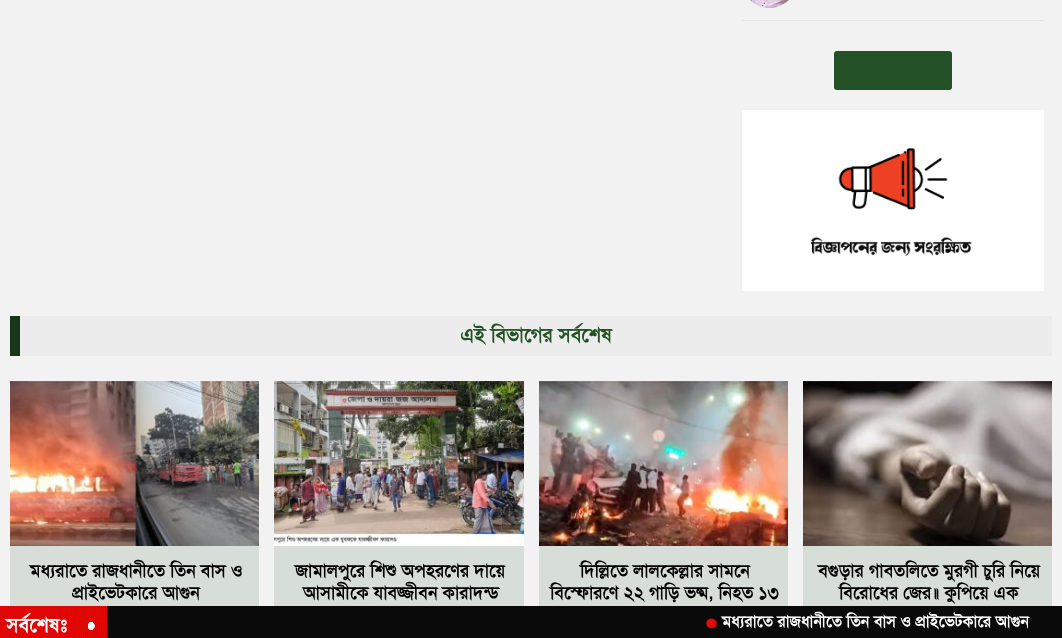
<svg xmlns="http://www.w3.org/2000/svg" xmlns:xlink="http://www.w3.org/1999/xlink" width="1062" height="638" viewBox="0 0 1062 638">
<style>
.cls-1{font:bold 20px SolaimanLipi;fill:#245125}
.cls-2{font:bold 18px SolaimanLipi;fill:#000000}
.cls-3{font:bold 20px SolaimanLipi;fill:#ffffff}
.cls-4{font:bold 16px SolaimanLipi;fill:#ffffff}
</style>
<rect width="100%" height="100%" fill="#f2f2f2"/>
<rect fill="#e5e5e5" x="742" y="20" width="302" height="1"/>
<image xlink:href="image0.png" x="750" y="0" width="39" height="8"/>
<rect fill="#245125" x="834" y="51" width="118" height="39" rx="3"/>
<image xlink:href="image1.png" x="742" y="110" width="302" height="181"/>
<rect fill="#ececec" x="20" y="316" width="1032" height="40"/>
<rect fill="#183619" x="10" y="316" width="10" height="40"/>
<rect fill="#d7ddd7" x="10" y="381" width="249" height="225"/>
<image xlink:href="image2.png" x="10" y="381" width="249" height="165"/>
<rect fill="#d7ddd7" x="274" y="381" width="250" height="225"/>
<image xlink:href="image3.png" x="274" y="381" width="250" height="165"/>
<rect fill="#d7ddd7" x="539" y="381" width="249" height="225"/>
<image xlink:href="image4.png" x="539" y="381" width="249" height="165"/>
<rect fill="#d7ddd7" x="803" y="381" width="249" height="225"/>
<image xlink:href="image5.png" x="803" y="381" width="249" height="165"/>
<rect fill="#0a0a0a" x="107" y="606" width="955" height="32"/>
<rect fill="#e10606" x="0" y="606" width="107" height="32"/>
<image xlink:href="image6.png" x="67" y="606" width="39" height="32"/>
<image xlink:href="image7.png" x="705" y="618" width="12" height="11"/>
<text class="cls-1" x="460" y="342">এই বিভাগের সর্বশেষ</text>
<text class="cls-2" x="30" y="577">মধ্যরাতে রাজধানীতে তিন বাস ও</text>
<text class="cls-2" x="72" y="599">প্রাইভেটকারে আগুন</text>
<text class="cls-2" x="295" y="577">জামালপুরে শিশু অপহরণের দায়ে</text>
<text class="cls-2" x="303" y="599">আসামীকে যাবজ্জীবন কারাদন্ড</text>
<text class="cls-2" x="580" y="577">দিল্লিতে লালকেল্লার সামনে</text>
<text class="cls-2" x="550" y="599">বিস্ফোরণে ২২ গাড়ি ভষ্ম, নিহত ১৩</text>
<text class="cls-2" x="818" y="577">বগুড়ার গাবতলিতে মুরগী চুরি নিয়ে</text>
<text class="cls-2" x="839" y="599">বিরোধের জের॥ কুপিয়ে এক</text>
<text class="cls-3" x="6" y="632">সর্বশেষঃ</text>
<text class="cls-4" x="722" y="627">মধ্যরাতে রাজধানীতে তিন বাস ও প্রাইভেটকারে আগুন</text>
</svg>
